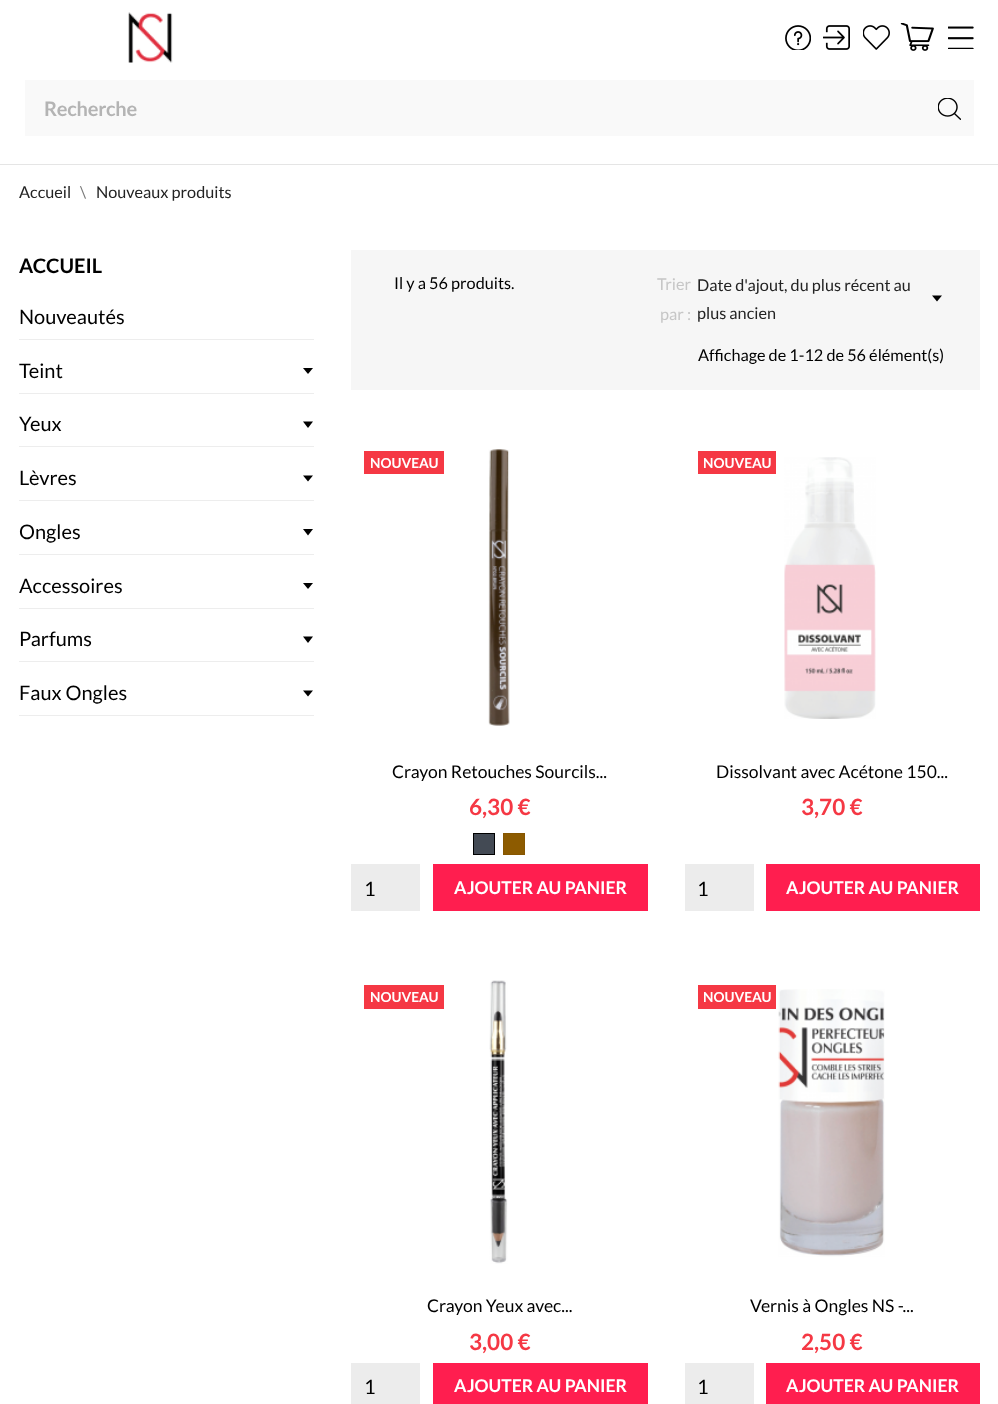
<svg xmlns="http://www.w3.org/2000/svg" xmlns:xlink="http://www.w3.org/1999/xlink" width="998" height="1404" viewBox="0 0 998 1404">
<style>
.cls-1{font:bold 20px Lato;letter-spacing:-0.25px;fill:#b4b4b4}
.cls-2{font:16.25px Lato;fill:#232323}
.cls-3{font:16.25px Lato;fill:#7a7a7a}
.cls-4{font:bold 20px Lato;fill:#000000}
.cls-5{font:20px Lato;fill:#000000}
.cls-6{font:16.25px Lato;fill:#000000}
.cls-7{font:16.25px Lato;fill:#c6c6c6}
.cls-8{font:bold 13.75px Lato;fill:#ffffff}
.cls-9{font:17.5px Lato;fill:#000000}
.cls-10{font:bold 22.5px Lato;fill:#f53844}
.cls-11{font:bold 17.5px Lato;fill:#ffffff}
</style>
<rect width="100%" height="100%" fill="#ffffff"/>
<rect fill="#e5e5e5" x="0" y="164" width="998" height="1"/>
<image xlink:href="image0.png" x="128" y="12" width="45" height="51"/>
<image xlink:href="image1.png" x="785" y="25" width="26" height="25"/>
<image xlink:href="image2.png" x="823" y="25" width="27" height="25"/>
<image xlink:href="image3.png" x="863" y="25" width="27" height="25"/>
<image xlink:href="image4.png" x="900" y="23" width="34" height="28"/>
<image xlink:href="image5.png" x="948" y="26" width="26" height="23"/>
<rect fill="#f9f9f9" x="25" y="80" width="949" height="56"/>
<image xlink:href="image6.png" x="938" y="98" width="23" height="22"/>
<rect fill="#ededed" x="19" y="339" width="295" height="1"/>
<rect fill="#ededed" x="19" y="393" width="295" height="1"/>
<path fill="#000000" fill-rule="evenodd" d="M308 374L303 368H313Z"/>
<rect fill="#ededed" x="19" y="446" width="295" height="1"/>
<path fill="#000000" fill-rule="evenodd" d="M308 428L303 421.5H313Z"/>
<rect fill="#ededed" x="19" y="500" width="295" height="1"/>
<path fill="#000000" fill-rule="evenodd" d="M308 481.5L303 475.5H313Z"/>
<rect fill="#ededed" x="19" y="554" width="295" height="1"/>
<path fill="#000000" fill-rule="evenodd" d="M308 535.5L303 529H313Z"/>
<rect fill="#ededed" x="19" y="608" width="295" height="1"/>
<path fill="#000000" fill-rule="evenodd" d="M308 589L303 583H313Z"/>
<rect fill="#ededed" x="19" y="661" width="295" height="1"/>
<path fill="#000000" fill-rule="evenodd" d="M308 643L303 636.5H313Z"/>
<rect fill="#ededed" x="19" y="715" width="295" height="1"/>
<path fill="#000000" fill-rule="evenodd" d="M308 696.5L303 690.5H313Z"/>
<rect fill="#f6f6f6" x="351" y="250" width="629" height="140"/>
<path fill="#000000" fill-rule="evenodd" d="M937 301.5L932 295.5H942Z"/>
<rect fill="#f53844" x="364" y="451" width="80" height="23"/>
<image xlink:href="image7.png" x="488" y="449" width="22" height="277"/>
<rect fill="#434a54" stroke="#000000" x="473.5" y="833.5" width="21" height="21"/>
<rect fill="#8d5b00" stroke="#865600" x="503.5" y="833.5" width="21" height="21"/>
<rect fill="#ececec" x="351" y="864" width="69" height="47"/>
<rect fill="#ff1e4f" x="433" y="864" width="215" height="47"/>
<rect fill="#f53844" x="698" y="451" width="78" height="23"/>
<image xlink:href="image8.png" x="784" y="457" width="92" height="262"/>
<rect fill="#ececec" x="685" y="864" width="69" height="47"/>
<rect fill="#ff1e4f" x="766" y="864" width="214" height="47"/>
<rect fill="#f53844" x="364" y="985" width="80" height="24"/>
<image xlink:href="image9.png" x="489" y="980" width="19" height="284"/>
<rect fill="#ececec" x="351" y="1363" width="69" height="41"/>
<rect fill="#ff1e4f" x="433" y="1363" width="215" height="41"/>
<rect fill="#f53844" x="698" y="985" width="78" height="24"/>
<image xlink:href="image10.png" x="778" y="989" width="107" height="268"/>
<rect fill="#ececec" x="685" y="1363" width="69" height="41"/>
<rect fill="#ff1e4f" x="766" y="1363" width="214" height="41"/>
<text class="cls-1" x="44" y="116">Recherche</text>
<text class="cls-2" x="19" y="198">Accueil</text>
<text class="cls-3" x="80" y="198">\</text>
<text class="cls-2" x="96" y="198">Nouveaux produits</text>
<text class="cls-4" x="19" y="273">ACCUEIL</text>
<text class="cls-5" x="19" y="324">Nouveautés</text>
<text class="cls-5" x="19" y="378">Teint</text>
<text class="cls-5" x="19" y="431">Yeux</text>
<text class="cls-5" x="19" y="485">Lèvres</text>
<text class="cls-5" x="19" y="539">Ongles</text>
<text class="cls-5" x="19" y="593">Accessoires</text>
<text class="cls-5" x="19" y="646">Parfums</text>
<text class="cls-5" x="19" y="700">Faux Ongles</text>
<text class="cls-6" x="394" y="289">Il y a 56 produits.</text>
<text class="cls-7" x="657" y="290">Trier</text>
<text class="cls-7" x="660" y="320">par :</text>
<text class="cls-2"><tspan x="697" y="291">Date d'ajout, du plus récent au</tspan><tspan x="697" y="319">plus ancien</tspan></text>
<text class="cls-6" x="698" y="361">Affichage de 1-12 de 56 élément(s)</text>
<text class="cls-8" x="370" y="468">NOUVEAU</text>
<text class="cls-9" x="392" y="778">Crayon Retouches Sourcils...</text>
<text class="cls-10" x="469" y="815">6,30 €</text>
<text class="cls-5" x="364" y="896">1</text>
<text class="cls-11" x="454" y="894">AJOUTER AU PANIER</text>
<text class="cls-8" x="703" y="468">NOUVEAU</text>
<text class="cls-9" x="716" y="778">Dissolvant avec Acétone 150...</text>
<text class="cls-10" x="801" y="815">3,70 €</text>
<text class="cls-5" x="697" y="896">1</text>
<text class="cls-11" x="786" y="894">AJOUTER AU PANIER</text>
<text class="cls-8" x="370" y="1002">NOUVEAU</text>
<text class="cls-9" x="427" y="1312">Crayon Yeux avec...</text>
<text class="cls-10" x="469" y="1350">3,00 €</text>
<text class="cls-5" x="364" y="1394">1</text>
<text class="cls-11" x="454" y="1392">AJOUTER AU PANIER</text>
<text class="cls-8" x="703" y="1002">NOUVEAU</text>
<text class="cls-9" x="750" y="1312">Vernis à Ongles NS -...</text>
<text class="cls-10" x="801" y="1350">2,50 €</text>
<text class="cls-5" x="697" y="1394">1</text>
<text class="cls-11" x="786" y="1392">AJOUTER AU PANIER</text>
</svg>
